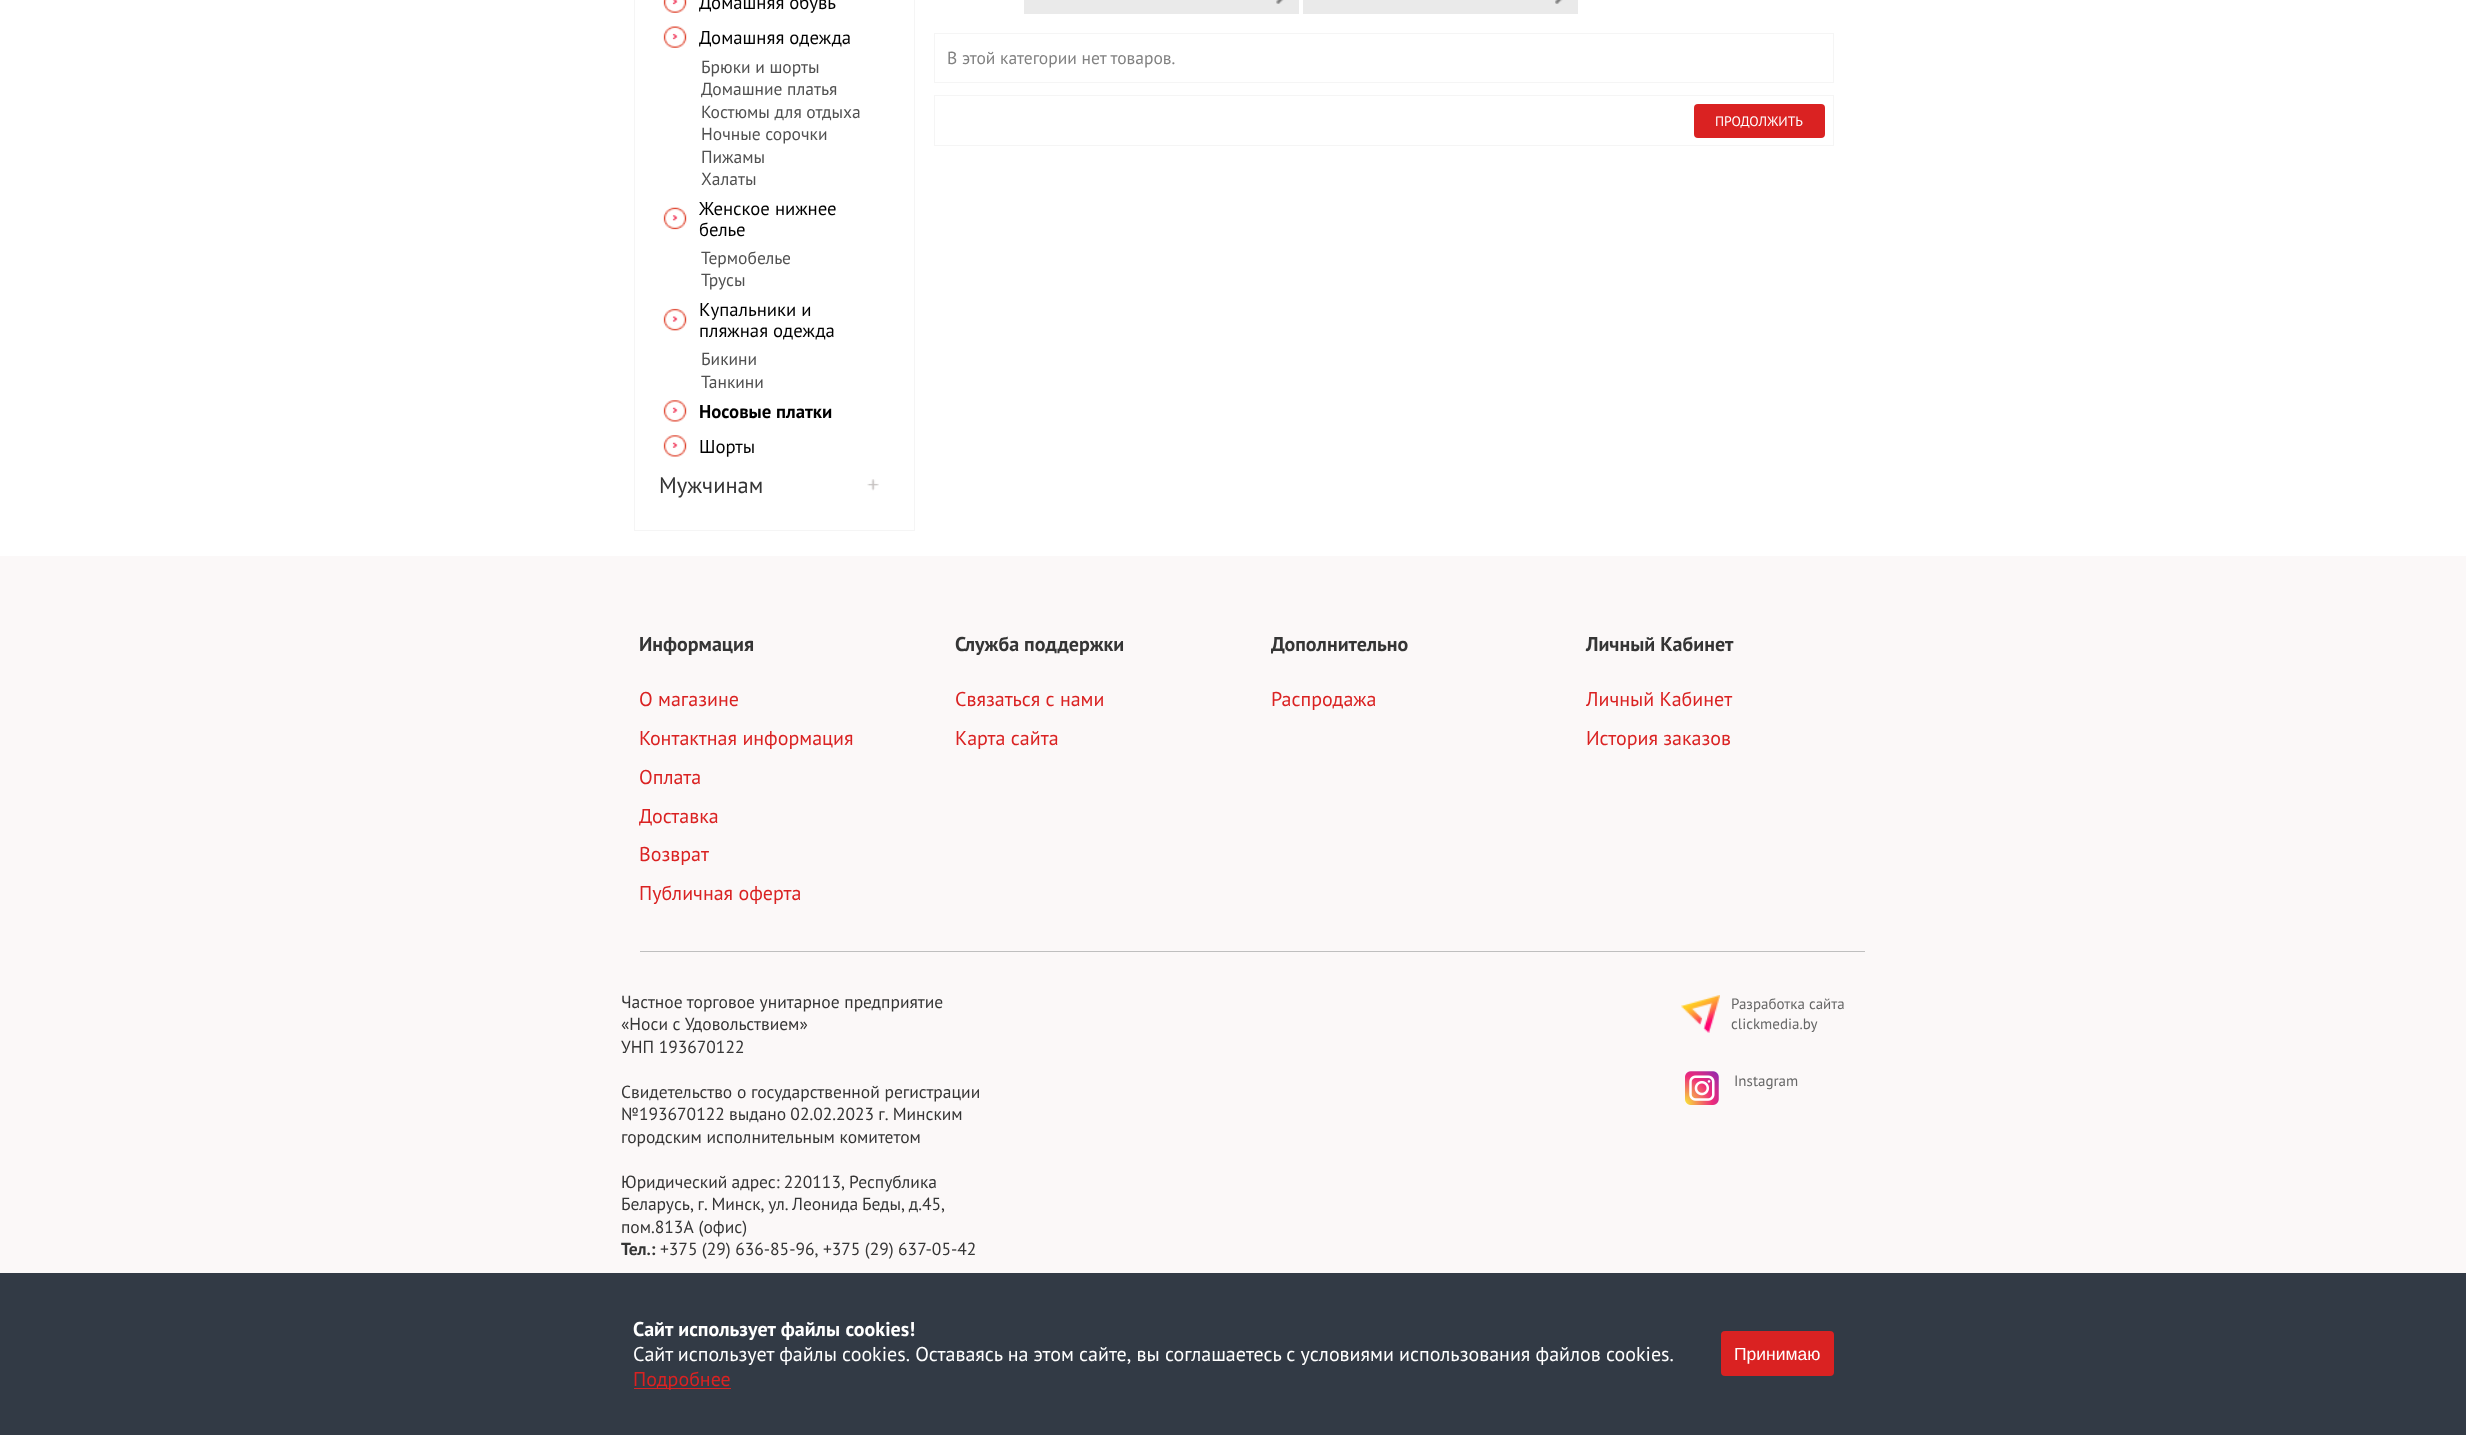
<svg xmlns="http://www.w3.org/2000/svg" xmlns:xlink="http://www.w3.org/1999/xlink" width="2466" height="1435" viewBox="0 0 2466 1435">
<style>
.cls-1{font:18.75px PT Sans;fill:#000000}
.cls-2{font:17.5px PT Sans;fill:#505050}
.cls-3{font:bold 18.75px PT Sans;fill:#000000}
.cls-4{font:22.5px PT Sans;fill:#353535}
.cls-5{font:17.5px PT Sans;fill:#818181}
.cls-6{font:13.75px PT Sans;fill:#ffffff}
.cls-7{font:bold 20px PT Sans;fill:#353535}
.cls-8{font:20px PT Sans;fill:#da2222}
.cls-9{font:17.5px PT Sans;fill:#353535}
.cls-10{font:bold 17.5px PT Sans;fill:#353535}
.cls-11{font:15px PT Sans;fill:#666666}
.cls-12{font:bold 20px PT Sans;fill:#ffffff}
.cls-13{font:20px PT Sans;fill:#ffffff}
.cls-14{font:17.5px Liberation Sans;fill:#ffffff}
</style>
<rect width="100%" height="100%" fill="#ffffff"/>
<rect fill="none" stroke="#f5f5f5" x="634.5" y="-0.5" width="280" height="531"/>
<image xlink:href="image0.png" x="663" y="0" width="24" height="13"/>
<image xlink:href="image1.png" x="663" y="26" width="24" height="22"/>
<image xlink:href="image2.png" x="663" y="207" width="24" height="23"/>
<image xlink:href="image3.png" x="663" y="308" width="24" height="23"/>
<image xlink:href="image4.png" x="663" y="400" width="24" height="22"/>
<image xlink:href="image4.png" x="663" y="435" width="24" height="22"/>
<image xlink:href="image5.png" x="867" y="479" width="12" height="12"/>
<rect fill="#eaeaea" x="1024" y="0" width="275" height="14"/>
<image xlink:href="image6.png" x="1276" y="0" width="8" height="4"/>
<rect fill="#eaeaea" x="1303" y="0" width="275" height="14"/>
<image xlink:href="image7.png" x="1555" y="0" width="8" height="4"/>
<rect fill="none" stroke="#f5f5f5" x="934.5" y="33.5" width="899" height="49"/>
<rect fill="none" stroke="#f5f5f5" x="934.5" y="95.5" width="899" height="50"/>
<rect fill="#da2222" x="1694" y="104" width="131" height="34" rx="4"/>
<rect fill="#fbf8f8" x="0" y="556" width="2466" height="717"/>
<rect fill="#bfbfbf" x="640" y="951" width="1225" height="1"/>
<image xlink:href="image8.png" x="1681" y="995" width="39" height="38"/>
<image xlink:href="image9.png" x="1685" y="1071" width="34" height="34"/>
<rect fill="#323a45" x="0" y="1273" width="2466" height="162"/>
<rect fill="#da2222" x="634" y="1388" width="97" height="1"/>
<rect fill="#da2222" x="1721" y="1331" width="113" height="45" rx="4"/>
<text class="cls-1"><tspan x="699" y="9">Домашняя обувь</tspan><tspan x="699" y="44">Домашняя одежда</tspan></text>
<text class="cls-2"><tspan x="701" y="73">Брюки и шорты</tspan><tspan x="701" y="95">Домашние платья</tspan><tspan x="701" y="118">Костюмы для отдыха</tspan><tspan x="701" y="140">Ночные сорочки</tspan><tspan x="701" y="163">Пижамы</tspan><tspan x="701" y="185">Халаты</tspan></text>
<text class="cls-1"><tspan x="699" y="215">Женское нижнее</tspan><tspan x="699" y="236">белье</tspan></text>
<text class="cls-2"><tspan x="701" y="264">Термобелье</tspan><tspan x="701" y="286">Трусы</tspan></text>
<text class="cls-1"><tspan x="699" y="316">Купальники и</tspan><tspan x="699" y="337">пляжная одежда</tspan></text>
<text class="cls-2"><tspan x="701" y="365">Бикини</tspan><tspan x="701" y="388">Танкини</tspan></text>
<text class="cls-3" x="699" y="418">Носовые платки</text>
<text class="cls-1" x="699" y="453">Шорты</text>
<text class="cls-4" x="659" y="493">Мужчинам</text>
<text class="cls-5" x="947" y="64">В этой категории нет товаров.</text>
<text class="cls-6" x="1715" y="126">ПРОДОЛЖИТЬ</text>
<text class="cls-7" x="639" y="651">Информация</text>
<text class="cls-8"><tspan x="639" y="706">О магазине</tspan><tspan x="639" y="745">Контактная информация</tspan><tspan x="639" y="784">Оплата</tspan><tspan x="639" y="823">Доставка</tspan><tspan x="639" y="861">Возврат</tspan><tspan x="639" y="900">Публичная оферта</tspan></text>
<text class="cls-7" x="955" y="651">Служба поддержки</text>
<text class="cls-8"><tspan x="955" y="706">Связаться с нами</tspan><tspan x="955" y="745">Карта сайта</tspan></text>
<text class="cls-7" x="1271" y="651">Дополнительно</text>
<text class="cls-8" x="1271" y="706">Распродажа</text>
<text class="cls-7" x="1586" y="651">Личный Кабинет</text>
<text class="cls-8"><tspan x="1586" y="706">Личный Кабинет</tspan><tspan x="1586" y="745">История заказов</tspan></text>
<text class="cls-9"><tspan x="621" y="1008">Частное торговое унитарное предприятие</tspan><tspan x="621" y="1030">«Носи с Удовольствием»</tspan><tspan x="621" y="1053">УНП 193670122</tspan></text>
<text class="cls-9"><tspan x="621" y="1098">Свидетельство о государственной регистрации</tspan><tspan x="621" y="1120" word-spacing="-0.5">№193670122 выдано 02.02.2023 г. Минским</tspan><tspan x="621" y="1143">городским исполнительным комитетом</tspan></text>
<text class="cls-9"><tspan x="621" y="1188" word-spacing="-0.5">Юридический адрес: 220113, Республика</tspan><tspan x="621" y="1210" word-spacing="-1">Беларусь, г. Минск, ул. Леонида Беды, д.45,</tspan><tspan x="621" y="1233" word-spacing="1">пом.813А (офис)</tspan></text>
<text class="cls-10" x="621" y="1255">Тел.:</text>
<text class="cls-9" x="660" y="1255" word-spacing="-0.25">+375 (29) 636-85-96, +375 (29) 637-05-42</text>
<text class="cls-11"><tspan x="1731" y="1009">Разработка сайта</tspan><tspan x="1731" y="1029">clickmedia.by</tspan></text>
<text class="cls-11" x="1734" y="1086">Instagram</text>
<text class="cls-12" x="633" y="1336" word-spacing="0.5">Сайт использует файлы cookies!</text>
<text class="cls-13" x="633" y="1361" word-spacing="-0.1">Сайт использует файлы cookies. Оставаясь на этом сайте, вы соглашаетесь с условиями использования файлов cookies.</text>
<text class="cls-8" x="633" y="1386">Подробнее</text>
<text class="cls-14" x="1734" y="1360">Принимаю</text>
</svg>
